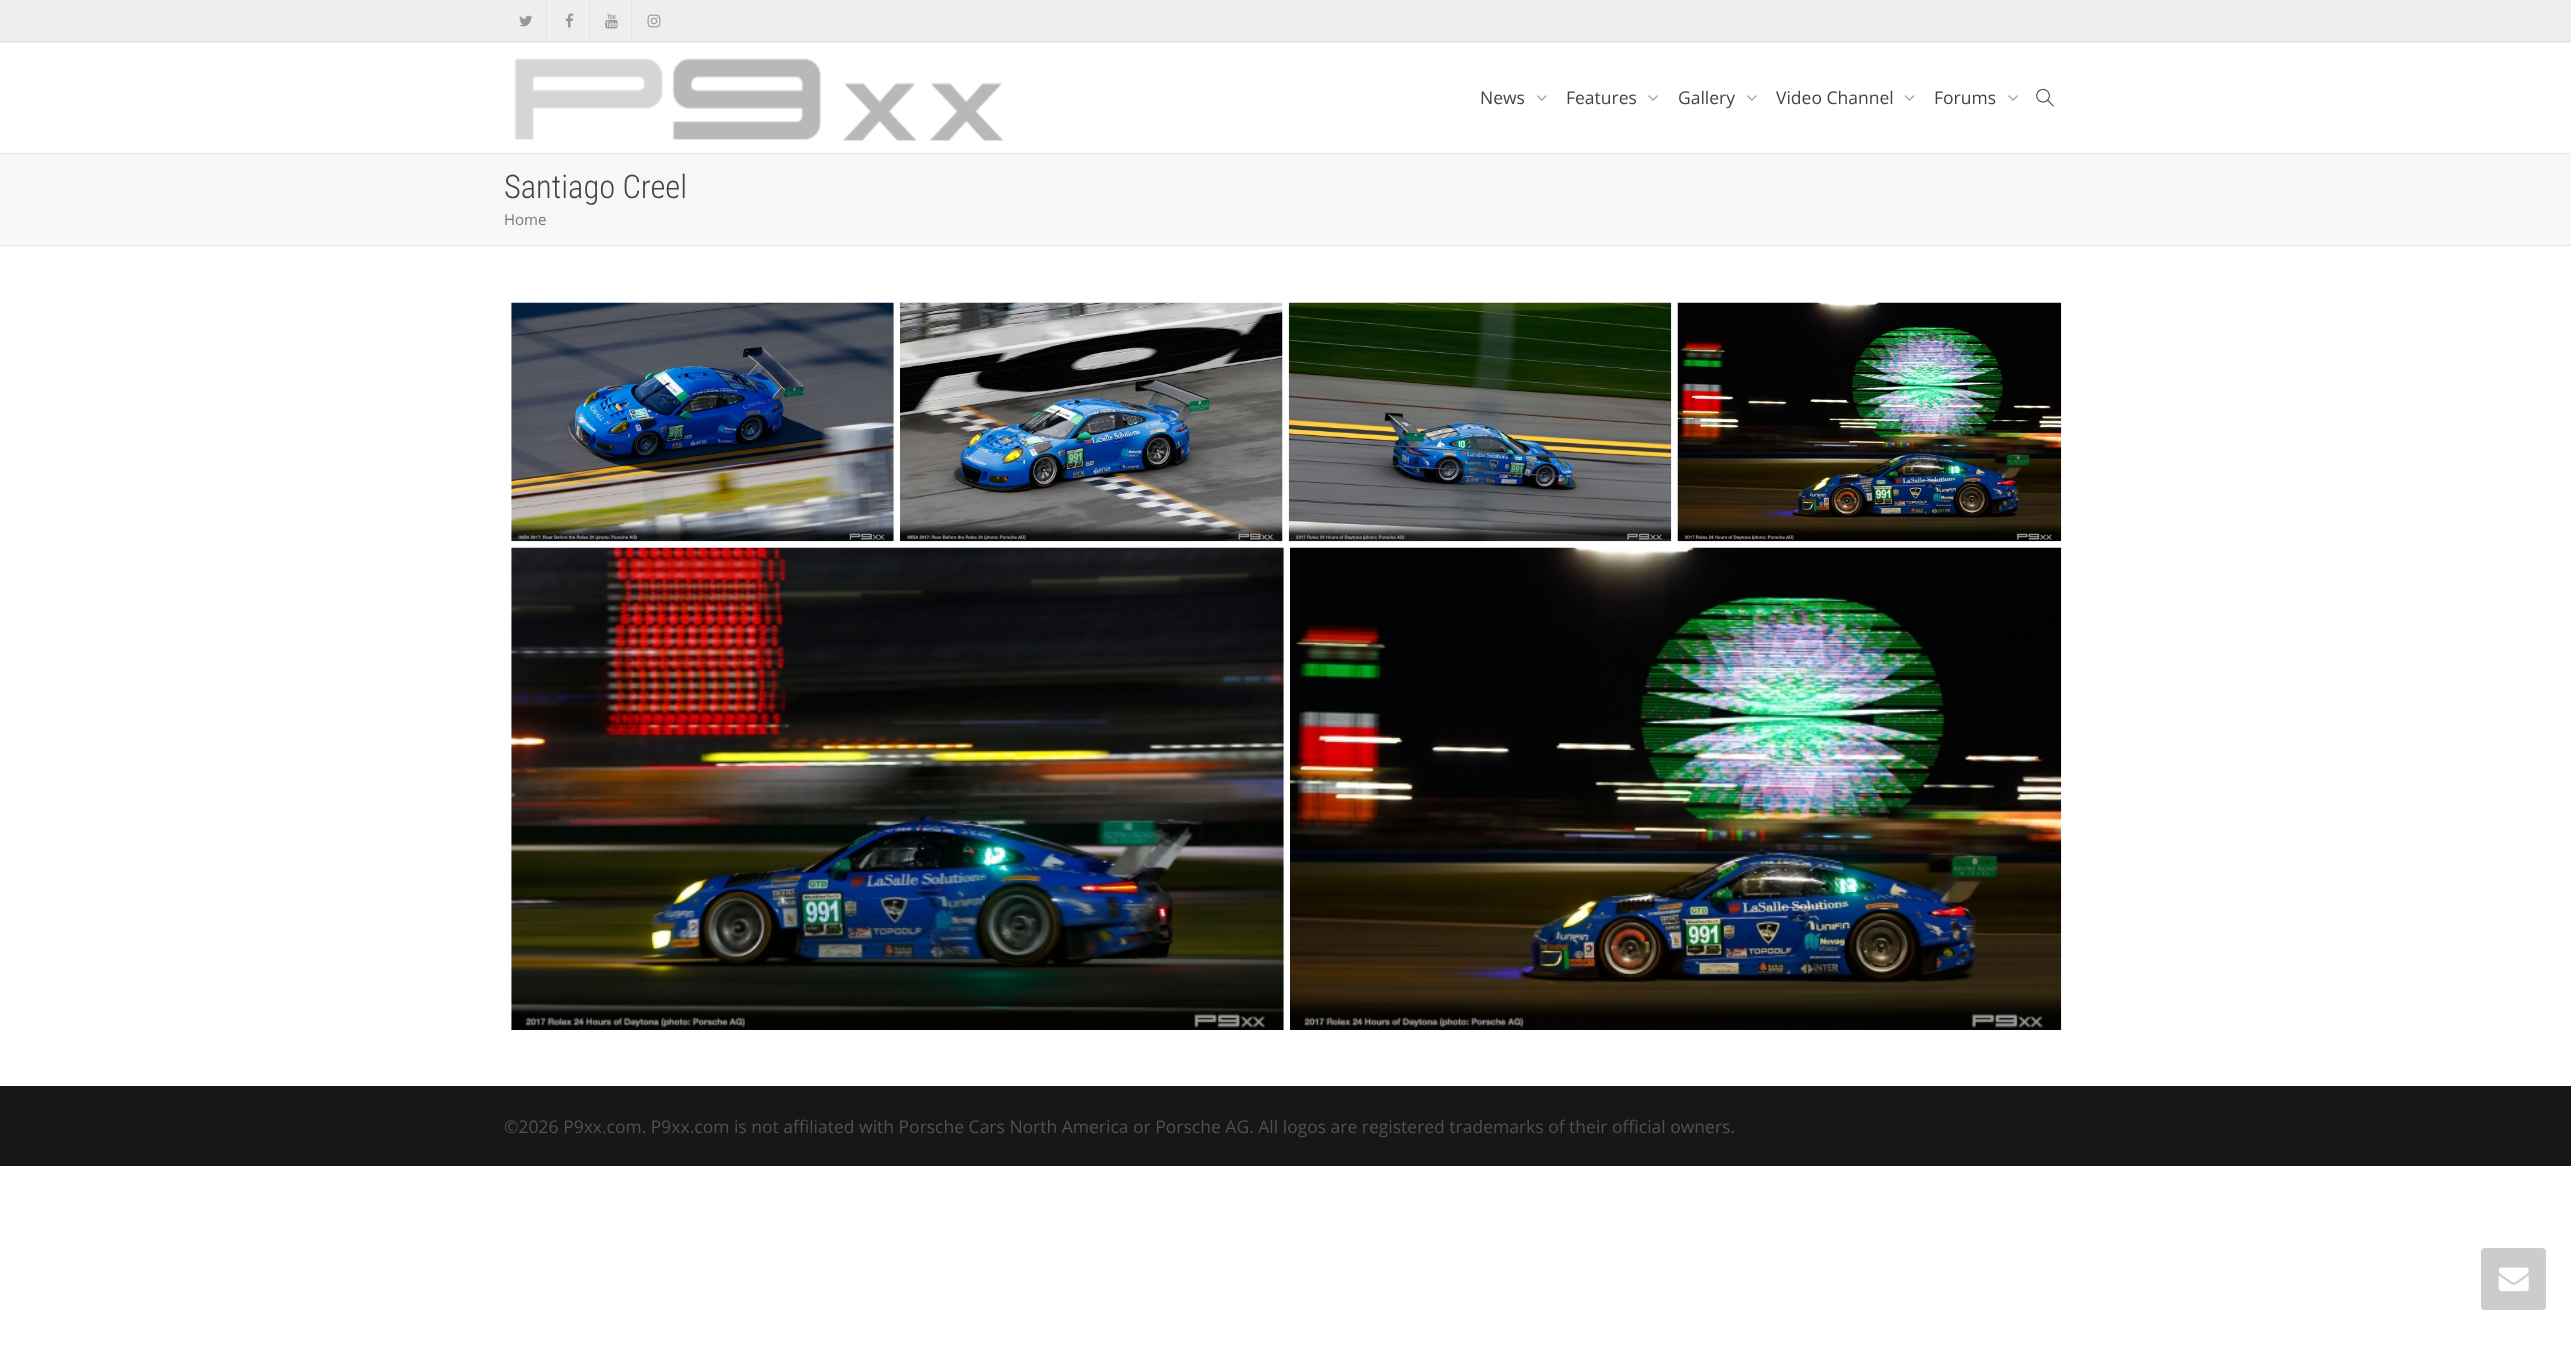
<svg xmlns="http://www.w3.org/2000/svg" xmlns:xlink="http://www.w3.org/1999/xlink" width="2571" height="1372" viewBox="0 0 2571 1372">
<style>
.cls-1{font:17.5px Open Sans;fill:#444444}
.cls-2{font:300 32.5px Roboto Condensed;fill:#444444}
.cls-3{font:15px Open Sans;fill:#777777}
.cls-4{font:17.5px Open Sans;fill:#515151}
</style>
<rect width="100%" height="100%" fill="#ffffff"/>
<rect fill="#eeeeee" x="0" y="0" width="2571" height="43"/>
<rect fill="#e5e5e5" x="0" y="41" width="2571" height="1"/>
<rect fill="#e5e5e5" x="546" y="0" width="1" height="41"/>
<image xlink:href="image0.png" x="519" y="15" width="13" height="12"/>
<rect fill="#e5e5e5" x="589" y="0" width="1" height="41"/>
<image xlink:href="image1.png" x="565" y="13" width="8" height="15"/>
<rect fill="#e5e5e5" x="631" y="0" width="1" height="41"/>
<image xlink:href="image2.png" x="605" y="13" width="13" height="16"/>
<image xlink:href="image3.png" x="647" y="14" width="14" height="14"/>
<rect fill="#e5e5e5" x="0" y="153" width="2571" height="1"/>
<image xlink:href="image4.png" x="514" y="58" width="490" height="83"/>
<image xlink:href="image5.png" x="1537" y="95" width="10" height="6"/>
<image xlink:href="image6.png" x="1648" y="95" width="10" height="6"/>
<image xlink:href="image5.png" x="1747" y="95" width="10" height="6"/>
<image xlink:href="image7.png" x="1904" y="95" width="11" height="6"/>
<image xlink:href="image6.png" x="2008" y="95" width="10" height="6"/>
<image xlink:href="image8.png" x="2036" y="88" width="18" height="19"/>
<rect fill="#f7f7f7" x="0" y="154" width="2571" height="91"/>
<rect fill="#e5e5e5" x="0" y="245" width="2571" height="1"/>
<image xlink:href="image9.png" x="511" y="302" width="383" height="240"/>
<image xlink:href="image10.png" x="900" y="302" width="383" height="240"/>
<image xlink:href="image11.png" x="1288" y="302" width="384" height="240"/>
<image xlink:href="image12.png" x="1677" y="302" width="385" height="240"/>
<image xlink:href="image13.png" x="511" y="547" width="773" height="483"/>
<image xlink:href="image14.png" x="1290" y="547" width="772" height="483"/>
<rect fill="#171717" x="0" y="1086" width="2571" height="80"/>
<rect fill="#cccccc" x="2481" y="1248" width="65" height="62" rx="4"/>
<image xlink:href="image15.png" x="2498" y="1267" width="31" height="25"/>
<text class="cls-1" x="1480" y="104">News</text>
<text class="cls-1" x="1566" y="104">Features</text>
<text class="cls-1" x="1678" y="104">Gallery</text>
<text class="cls-1" x="1776" y="104">Video Channel</text>
<text class="cls-1" x="1934" y="104">Forums</text>
<text class="cls-2" x="504" y="198">Santiago Creel</text>
<text class="cls-3" x="504" y="225">Home</text>
<text class="cls-4" x="504" y="1133">©2026 P9xx.com. P9xx.com is not affiliated with Porsche Cars North America or Porsche AG. All logos are registered trademarks of their official owners.</text>
</svg>
